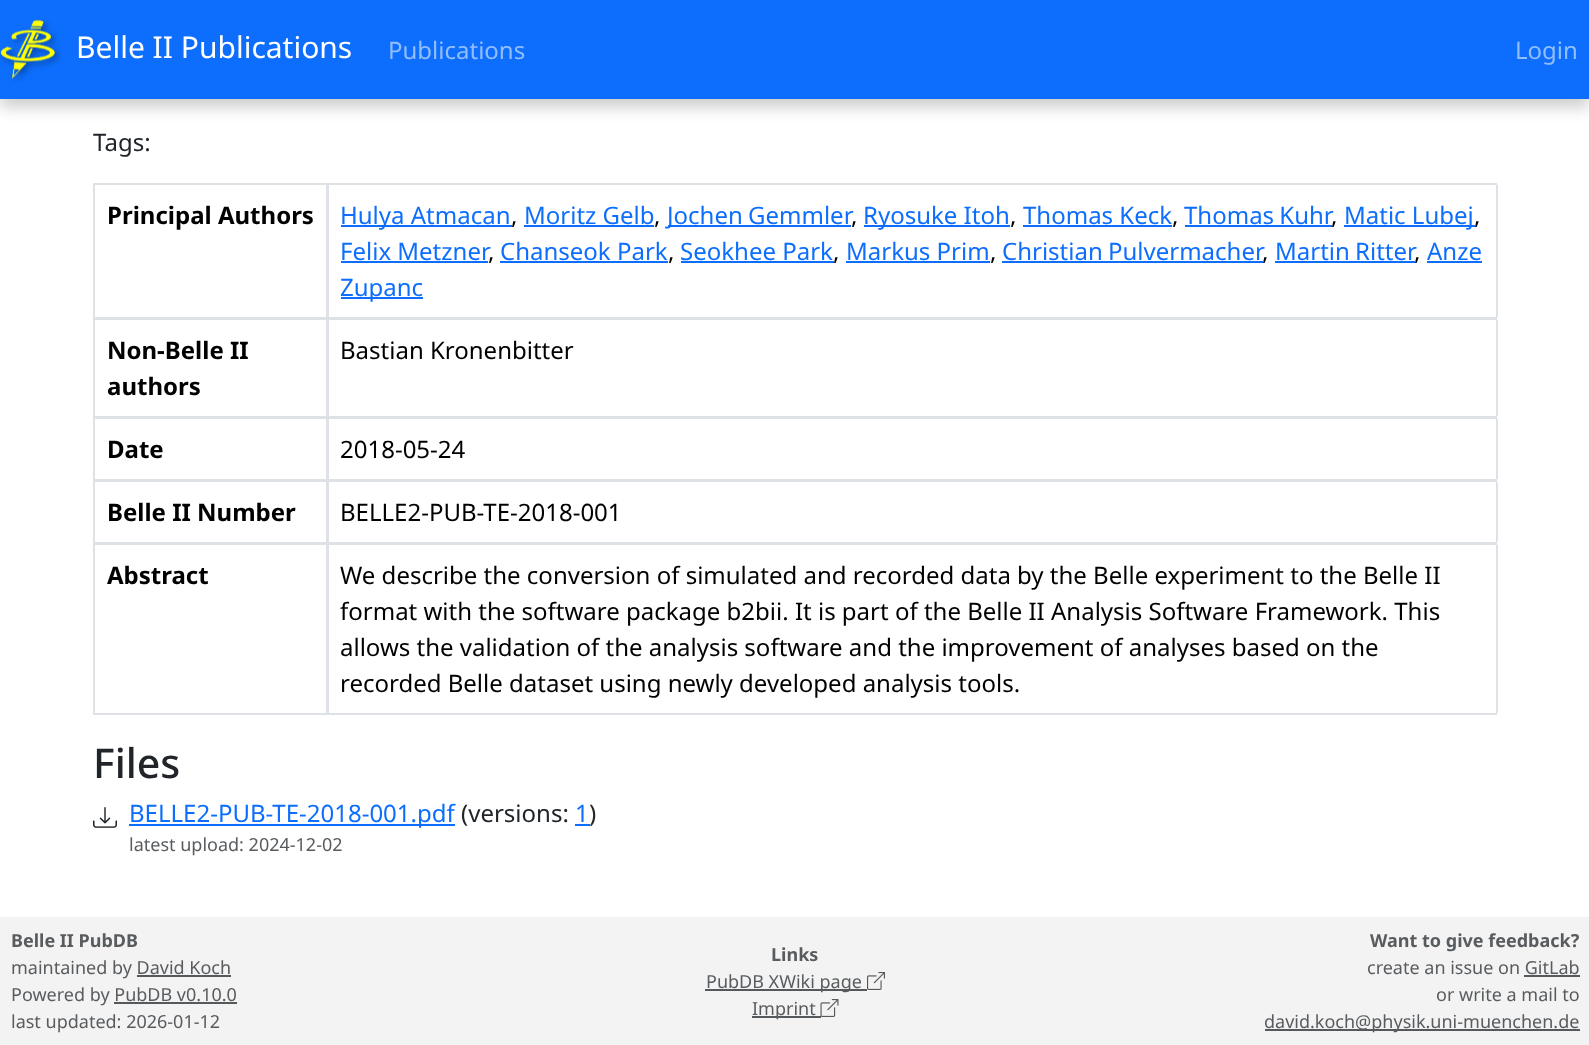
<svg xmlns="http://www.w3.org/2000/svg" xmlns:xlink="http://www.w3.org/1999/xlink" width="1589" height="1045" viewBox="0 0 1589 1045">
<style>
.cls-1{font:30px Noto Sans;fill:#ffffff}
.cls-2{font:24px Noto Sans;fill:#92befe}
.cls-3{font:24px Noto Sans;fill:#212529}
.cls-4{font:bold 24px Noto Sans;fill:#000000}
.cls-5{font:24px Noto Sans;fill:#0d6efd}
.cls-6{font:24px Noto Sans;fill:#000000}
.cls-7{font:500 41px Noto Sans;fill:#212529}
.cls-8{font:18px Noto Sans;fill:#595c5f}
.cls-9{font:bold 18px Noto Sans;fill:#595c5f}
</style>
<rect width="100%" height="100%" fill="#ffffff"/>
<rect fill="#010101" fill-opacity="0.2" filter="blur(7.5px)" x="0" y="8" width="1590" height="99"/>
<rect fill="#0d6efd" x="0" y="0" width="1589" height="99"/>
<image xlink:href="image0.png" x="0" y="19" width="62" height="64"/>
<rect fill="#dee2e6" x="93" y="183" width="1404" height="2"/>
<rect fill="#dee2e6" x="93" y="317" width="1404" height="3"/>
<rect fill="#dee2e6" x="326" y="185" width="3" height="132"/>
<rect fill="#dee2e6" x="93" y="185" width="2" height="132"/>
<rect fill="#dee2e6" x="1496" y="185" width="2" height="132"/>
<rect fill="#0d6efd" x="341" y="225" width="171" height="2"/>
<rect fill="#0d6efd" x="524" y="225" width="130" height="2"/>
<rect fill="#0d6efd" x="668" y="225" width="183" height="2"/>
<rect fill="#0d6efd" x="864" y="225" width="146" height="2"/>
<rect fill="#0d6efd" x="1023" y="225" width="149" height="2"/>
<rect fill="#0d6efd" x="1185" y="225" width="147" height="2"/>
<rect fill="#0d6efd" x="1344" y="225" width="131" height="2"/>
<rect fill="#0d6efd" x="341" y="261" width="147" height="2"/>
<rect fill="#0d6efd" x="500" y="261" width="168" height="2"/>
<rect fill="#0d6efd" x="681" y="261" width="153" height="2"/>
<rect fill="#0d6efd" x="846" y="261" width="144" height="2"/>
<rect fill="#0d6efd" x="1002" y="261" width="261" height="2"/>
<rect fill="#0d6efd" x="1275" y="261" width="140" height="2"/>
<rect fill="#0d6efd" x="1427" y="261" width="55" height="2"/>
<rect fill="#0d6efd" x="341" y="297" width="82" height="2"/>
<rect fill="#dee2e6" x="93" y="416" width="1404" height="3"/>
<rect fill="#dee2e6" x="326" y="320" width="3" height="96"/>
<rect fill="#dee2e6" x="93" y="320" width="2" height="96"/>
<rect fill="#dee2e6" x="1496" y="320" width="2" height="96"/>
<rect fill="#dee2e6" x="93" y="479" width="1404" height="3"/>
<rect fill="#dee2e6" x="326" y="419" width="3" height="60"/>
<rect fill="#dee2e6" x="93" y="419" width="2" height="60"/>
<rect fill="#dee2e6" x="1496" y="419" width="2" height="60"/>
<rect fill="#dee2e6" x="93" y="542" width="1404" height="3"/>
<rect fill="#dee2e6" x="326" y="482" width="3" height="60"/>
<rect fill="#dee2e6" x="93" y="482" width="2" height="60"/>
<rect fill="#dee2e6" x="1496" y="482" width="2" height="60"/>
<rect fill="#dee2e6" x="93" y="713" width="1404" height="2"/>
<rect fill="#dee2e6" x="326" y="545" width="3" height="168"/>
<rect fill="#dee2e6" x="93" y="545" width="2" height="168"/>
<rect fill="#dee2e6" x="1496" y="545" width="2" height="168"/>
<image xlink:href="image1.png" x="93" y="807" width="24" height="21"/>
<rect fill="#0d6efd" x="129" y="824" width="326" height="2"/>
<rect fill="#0d6efd" x="575" y="824" width="15" height="2"/>
<rect fill="#f3f3f3" x="0" y="917" width="1589" height="128"/>
<rect fill="#56595c" x="705" y="989" width="162" height="2"/>
<image xlink:href="image2.png" x="867" y="972" width="18" height="18"/>
<rect fill="#56595c" x="752" y="1016" width="69" height="2"/>
<image xlink:href="image3.png" x="820" y="999" width="19" height="18"/>
<rect fill="#56595c" x="1524" y="975" width="56" height="2"/>
<rect fill="#56595c" x="1265" y="1029" width="315" height="2"/>
<text class="cls-1" x="76" y="58">Belle II Publications</text>
<text class="cls-2" x="388" y="59">Publications</text>
<text class="cls-2" x="1515" y="59">Login</text>
<text class="cls-3" x="93" y="151">Tags:</text>
<text class="cls-4" x="107" y="224">Principal Authors</text>
<text class="cls-5" x="340" y="224">Hulya Atmacan</text>
<text class="cls-6" x="511" y="224">,</text>
<text class="cls-5" x="524" y="224">Moritz Gelb</text>
<text class="cls-6" x="654" y="224">,</text>
<text class="cls-5" x="667" y="224" word-spacing="-1">Jochen Gemmler</text>
<text class="cls-6" x="851" y="224">,</text>
<text class="cls-5" x="863" y="224">Ryosuke Itoh</text>
<text class="cls-6" x="1010" y="224">,</text>
<text class="cls-5" x="1023" y="224">Thomas Keck</text>
<text class="cls-6" x="1172" y="224">,</text>
<text class="cls-5" x="1184" y="224" word-spacing="-1">Thomas Kuhr</text>
<text class="cls-5" x="1344" y="224">Matic Lubej</text>
<text class="cls-6" x="1331" y="224">,</text>
<text class="cls-6" x="1474" y="224">,</text>
<text class="cls-5" x="340" y="260">Felix Metzner</text>
<text class="cls-5" x="500" y="260">Chanseok Park</text>
<text class="cls-5" x="680" y="260">Seokhee Park</text>
<text class="cls-5" x="846" y="260">Markus Prim</text>
<text class="cls-5" x="1002" y="260" word-spacing="-1">Christian Pulvermacher</text>
<text class="cls-5" x="1275" y="260" word-spacing="-1">Martin Ritter</text>
<text class="cls-5" x="1427" y="260">Anze</text>
<text class="cls-6" x="488" y="260">,</text>
<text class="cls-6" x="668" y="260">,</text>
<text class="cls-6" x="833" y="260">,</text>
<text class="cls-6" x="990" y="260">,</text>
<text class="cls-6" x="1262" y="260">,</text>
<text class="cls-6" x="1414" y="260">,</text>
<text class="cls-5" x="340" y="296">Zupanc</text>
<text class="cls-4"><tspan x="107" y="359">Non-Belle II</tspan><tspan x="107" y="395">authors</tspan></text>
<text class="cls-6" x="340" y="359">Bastian Kronenbitter</text>
<text class="cls-4" x="107" y="458">Date</text>
<text class="cls-6" x="340" y="458">2018-05-24</text>
<text class="cls-4" x="107" y="521">Belle II Number</text>
<text class="cls-6" x="340" y="521">BELLE2-PUB-TE-2018-001</text>
<text class="cls-4" x="107" y="584">Abstract</text>
<text class="cls-6"><tspan x="340" y="584">We describe the conversion of simulated and recorded data by the Belle experiment to the Belle II</tspan><tspan x="340" y="620">format with the software package b2bii. It is part of the Belle II Analysis Software Framework. This</tspan><tspan x="340" y="656">allows the validation of the analysis software and the improvement of analyses based on the</tspan><tspan x="340" y="692">recorded Belle dataset using newly developed analysis tools.</tspan></text>
<text class="cls-7" x="93" y="778">Files</text>
<text class="cls-5" x="129" y="822">BELLE2-PUB-TE-2018-001.pdf</text>
<text class="cls-3" x="461" y="822">(versions:</text>
<text class="cls-5" x="575" y="822">1</text>
<text class="cls-3" x="589" y="822">)</text>
<text class="cls-8" x="129" y="851">latest upload: 2024-12-02</text>
<text class="cls-9" x="11" y="947">Belle II PubDB</text>
<text class="cls-8" x="11" y="974">maintained by David Koch</text>
<rect fill="#56595c" x="137" y="975" width="94" height="2"/>
<text class="cls-8" x="11" y="1001">Powered by PubDB v0.10.0</text>
<rect fill="#56595c" x="114" y="1002" width="123" height="2"/>
<text class="cls-8" x="11" y="1028">last updated: 2026-01-12</text>
<text class="cls-9" x="771" y="961">Links</text>
<text class="cls-8" x="706" y="988">PubDB XWiki page</text>
<text class="cls-8" x="752" y="1015">Imprint</text>
<text class="cls-9" x="1370" y="947">Want to give feedback?</text>
<text class="cls-8" x="1367" y="974">create an issue on GitLab</text>
<text class="cls-8" x="1436" y="1001">or write a mail to</text>
<text class="cls-8" x="1264" y="1028">david.koch@physik.uni-muenchen.de</text>
</svg>
